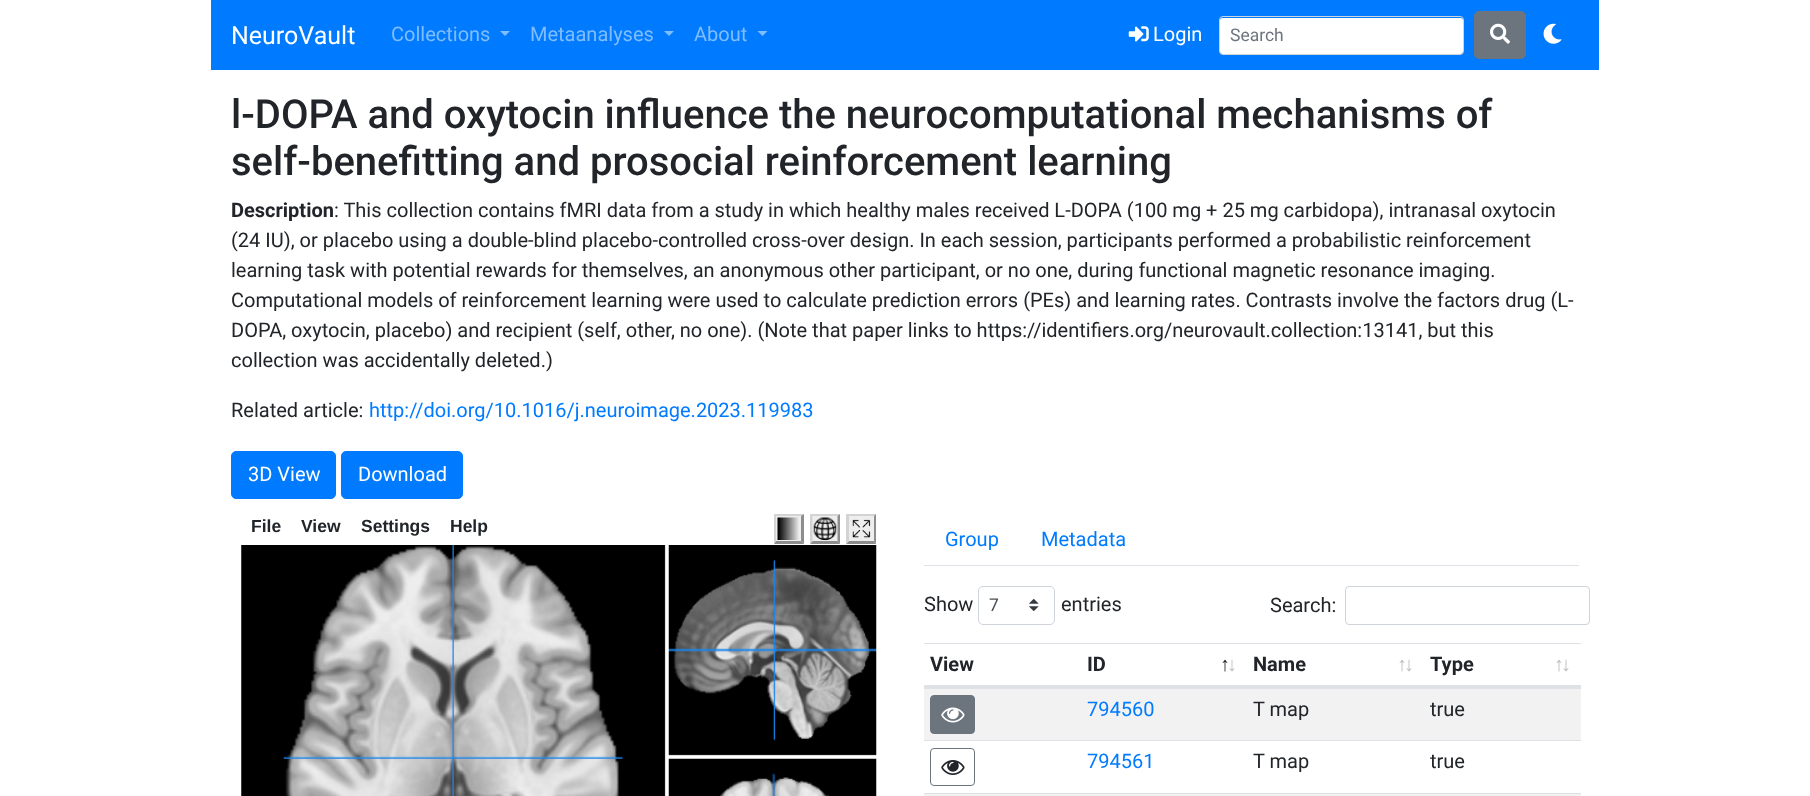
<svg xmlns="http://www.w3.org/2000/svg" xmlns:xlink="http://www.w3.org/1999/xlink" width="1810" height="796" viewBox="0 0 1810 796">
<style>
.cls-1{font:25px Roboto;fill:#ffffff}
.cls-2{font:20px Roboto;fill:#80bdff}
.cls-3{font:20px Roboto;fill:#ffffff}
.cls-4{font:17.5px Roboto;fill:#6c757d}
.cls-5{font:500 40px Roboto;fill:#212529}
.cls-6{font:bold 20px Roboto;fill:#212529}
.cls-7{font:20px Roboto;fill:#212529}
.cls-8{font:20px Roboto;fill:#007bff}
.cls-9{font:bold 17.5px Liberation Sans;fill:#212529}
.cls-10{font:17.5px Roboto;fill:#495057}
.cls-11{font:bold 20px Liberation Sans;fill:#212529}
.cls-12{font:bold 20px Liberation Sans;fill:#bcbebf}
</style>
<rect width="100%" height="100%" fill="#ffffff"/>
<rect fill="#007bff" x="211" y="0" width="1388" height="70"/>
<path fill="#80bdff" d="M500 31H510L505 36Z"/>
<path fill="#80bdff" d="M664 31H674L669 36Z"/>
<path fill="#80bdff" d="M757.5 31H767.5L762.5 36Z"/>
<image xlink:href="image0.png" x="1128" y="26" width="21" height="16"/>
<rect fill="#ffffff" x="1220" y="18" width="243" height="36" rx="2.5"/>
<rect fill="none" stroke="#ced4da" x="1219.5" y="16.5" width="244" height="38" rx="3.5"/>
<rect fill="#6c757d" stroke="#6c757d" x="1474.5" y="11.5" width="51" height="47" rx="4.5"/>
<image xlink:href="image1.png" x="1490" y="23" width="20" height="21"/>
<image xlink:href="image2.png" x="1543" y="23" width="19" height="21"/>
<rect fill="#007bff" stroke="#007bff" x="231.5" y="451.5" width="104" height="47" rx="4.5"/>
<rect fill="#007bff" stroke="#007bff" x="341.5" y="451.5" width="121" height="47" rx="4.5"/>
<rect fill="#eeeeee" x="774" y="514" width="30" height="30"/>
<path fill="#d3d3d3" d="M774 514H804L801 516H776Z"/>
<path fill="#8d8d8d" d="M804 514V544L801 541V516Z"/>
<path fill="#8d8d8d" d="M804 544H774L776 541H801Z"/>
<path fill="#d3d3d3" d="M774 544V514L776 516V541Z"/>
<image xlink:href="image3.png" x="777" y="517" width="22" height="23"/>
<rect fill="#eeeeee" x="810" y="514" width="30" height="30"/>
<path fill="#d3d3d3" d="M810 514H840L837.5 516H812.5Z"/>
<path fill="#8d8d8d" d="M840 514V544L837.5 541V516Z"/>
<path fill="#8d8d8d" d="M840 544H810L812.5 541H837.5Z"/>
<path fill="#d3d3d3" d="M810 544V514L812.5 516V541Z"/>
<image xlink:href="image4.png" x="813" y="517" width="24" height="23"/>
<rect fill="#eeeeee" x="846" y="514" width="30" height="30"/>
<path fill="#d3d3d3" d="M846 514H876L874 516H849Z"/>
<path fill="#8d8d8d" d="M876 514V544L874 541V516Z"/>
<path fill="#8d8d8d" d="M876 544H846L849 541H874Z"/>
<path fill="#d3d3d3" d="M846 544V514L849 516V541Z"/>
<image xlink:href="image5.png" x="852" y="519" width="19" height="19"/>
<image xlink:href="image6.png" x="241" y="545" width="636" height="251"/>
<rect fill="#dee2e6" x="924" y="565" width="655" height="1"/>
<image xlink:href="image7.png" x="1029" y="599" width="10" height="12"/>
<rect fill="none" stroke="#ced4da" x="978.5" y="586.5" width="76" height="38" rx="4.5"/>
<rect fill="none" stroke="#ced4da" x="1345.5" y="586.5" width="244" height="38" rx="3.5"/>
<rect fill="#dee2e6" x="924" y="643" width="657" height="1"/>
<rect fill="#dee2e6" x="924" y="685" width="157" height="4"/>
<rect fill="#dee2e6" x="1081" y="685" width="500" height="3"/>
<rect fill="#f2f2f2" x="924" y="689" width="657" height="51"/>
<rect fill="#6c757d" stroke="#6c757d" x="930.5" y="695.5" width="44" height="38" rx="3.5"/>
<image xlink:href="image8.png" x="941" y="707" width="24" height="16"/>
<rect fill="#dee2e6" x="1081" y="688" width="500" height="1"/>
<rect fill="#dee2e6" x="924" y="740" width="657" height="1"/>
<rect fill="none" stroke="#6c757d" x="930.5" y="748.5" width="44" height="37" rx="3.5"/>
<image xlink:href="image9.png" x="941" y="760" width="24" height="15"/>
<rect fill="#f2f2f2" x="924" y="794" width="657" height="2"/>
<rect fill="#dee2e6" x="924" y="793" width="657" height="1"/>
<text class="cls-1" x="231" y="44">NeuroVault</text>
<text class="cls-2" x="391" y="41">Collections</text>
<text class="cls-2" x="530" y="41">Metaanalyses</text>
<text class="cls-2" x="694" y="41">About</text>
<text class="cls-3" x="1153" y="41">Login</text>
<text class="cls-4" x="1230" y="41">Search</text>
<text class="cls-5"><tspan x="231" y="128">l-DOPA and oxytocin influence the neurocomputational mechanisms of</tspan><tspan x="231" y="175">self-benefitting and prosocial reinforcement learning</tspan></text>
<text class="cls-6" x="231" y="217">Description</text>
<text class="cls-7" x="334" y="217">: This collection contains fMRI data from a study in which healthy males received L-DOPA (100 mg + 25 mg carbidopa), intranasal oxytocin</text>
<text class="cls-7"><tspan x="231" y="247">(24 IU), or placebo using a double-blind placebo-controlled cross-over design. In each session, participants performed a probabilistic reinforcement</tspan><tspan x="231" y="277">learning task with potential rewards for themselves, an anonymous other participant, or no one, during functional magnetic resonance imaging.</tspan><tspan x="231" y="307">Computational models of reinforcement learning were used to calculate prediction errors (PEs) and learning rates. Contrasts involve the factors drug (L-</tspan><tspan x="231" y="337">DOPA, oxytocin, placebo) and recipient (self, other, no one). (Note that paper links to https://identifiers.org/neurovault.collection:13141, but this</tspan><tspan x="231" y="367">collection was accidentally deleted.)</tspan></text>
<text class="cls-7" x="231" y="417">Related article:</text>
<text class="cls-8" x="369" y="417">http://doi.org/10.1016/j.neuroimage.2023.119983</text>
<text class="cls-3" x="248" y="481">3D View</text>
<text class="cls-3" x="358" y="481">Download</text>
<text class="cls-9" x="251" y="532">File</text>
<text class="cls-9" x="301" y="532">View</text>
<text class="cls-9" x="361" y="532">Settings</text>
<text class="cls-9" x="450" y="532">Help</text>
<text class="cls-8" x="945" y="546">Group</text>
<text class="cls-8" x="1041" y="546">Metadata</text>
<text class="cls-7" x="924" y="611">Show</text>
<text class="cls-10" x="989" y="611">7</text>
<text class="cls-7" x="1061" y="611">entries</text>
<text class="cls-7" x="1270" y="612">Search:</text>
<text class="cls-6" x="930" y="671">View</text>
<text class="cls-6" x="1087" y="671">ID</text>
<text class="cls-11" x="1220" y="671">↑</text>
<text class="cls-12" x="1227" y="671">↓</text>
<text class="cls-6" x="1253" y="671">Name</text>
<text class="cls-12" x="1397" y="671">↑</text>
<text class="cls-12" x="1404" y="671">↓</text>
<text class="cls-6" x="1430" y="671">Type</text>
<text class="cls-12" x="1554" y="671">↑</text>
<text class="cls-12" x="1561" y="671">↓</text>
<text class="cls-8" x="1087" y="716">794560</text>
<text class="cls-7" x="1253" y="716">T map</text>
<text class="cls-7" x="1430" y="716">true</text>
<text class="cls-8" x="1087" y="768">794561</text>
<text class="cls-7" x="1253" y="768">T map</text>
<text class="cls-7" x="1430" y="768">true</text>
</svg>
